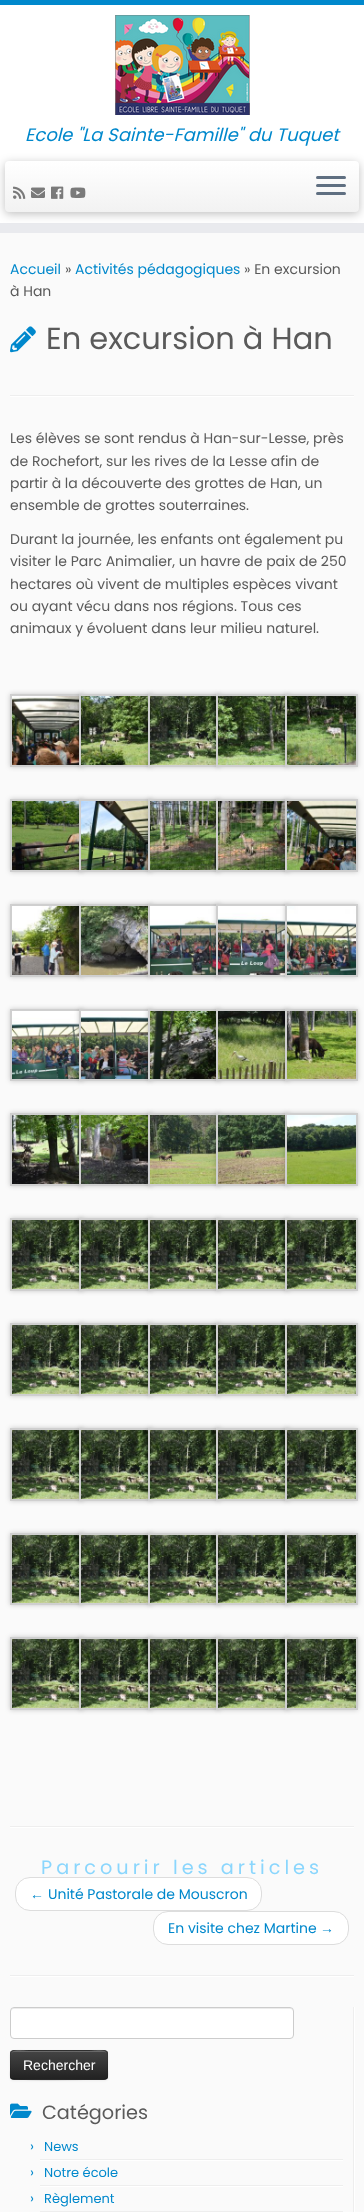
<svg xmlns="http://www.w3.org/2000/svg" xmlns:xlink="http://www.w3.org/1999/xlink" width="364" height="2212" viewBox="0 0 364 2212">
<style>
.cls-1{font:italic 18px Poppins;fill:#0088cc}
.cls-2{font:14px Poppins;fill:#0088cc}
.cls-3{font:14px Poppins;fill:#5a5a5a}
.cls-4{font:30.5px Poppins;fill:#5a5a5a}
.cls-5{font:19.25px Poppins;letter-spacing:4px;fill:#8ad6fd}
.cls-6{font:14px Liberation Serif;fill:#0088cc}
.cls-7{font:14px Liberation Sans;fill:#ffffff}
.cls-8{font:19.25px Poppins;fill:#5a5a5a}
.cls-9{font:13px Poppins;fill:#0088cc}
</style>
<defs>
<linearGradient id="g1" gradientUnits="userSpaceOnUse" x1="182" y1="161" x2="182" y2="212"><stop offset="0" stop-color="#ffffff"/><stop offset="1" stop-color="#f2f2f2"/></linearGradient>
<clipPath id="clip1"><rect x="10" y="2050" width="98" height="30" rx="4"/></clipPath>
<linearGradient id="g2" gradientUnits="userSpaceOnUse" x1="59" y1="2051" x2="59" y2="2079"><stop offset="0" stop-color="#444444"/><stop offset="1" stop-color="#222222"/></linearGradient>
</defs>
<rect width="100%" height="100%" fill="#fafafa"/>
<rect fill="#ffffff" x="0" y="5" width="364" height="218"/>
<rect fill="#0088cc" x="0" y="0" width="364" height="5"/>
<rect fill="#e9eaee" x="0" y="223" width="364" height="10"/>
<image xlink:href="image0.png" x="115" y="15" width="135" height="100"/>
<rect fill="#000000" fill-opacity="0.25" filter="blur(5px)" x="5" y="163" width="354" height="51" rx="4"/>
<rect fill="url(#g1)" x="5" y="161" width="354" height="51" rx="4"/>
<image xlink:href="image1.png" x="13" y="186" width="13" height="13"/>
<image xlink:href="image2.png" x="31" y="187" width="14" height="11"/>
<image xlink:href="image3.png" x="51" y="186" width="13" height="13"/>
<image xlink:href="image4.png" x="70" y="187" width="16" height="11"/>
<rect fill="#5f6f81" x="316" y="176" width="30" height="3" rx="1.5"/>
<rect fill="#5f6f81" x="316" y="184" width="30" height="3" rx="1.5"/>
<rect fill="#5f6f81" x="316" y="192" width="30" height="3" rx="1.5"/>
<image xlink:href="image5.png" x="10" y="326" width="26" height="27"/>
<rect fill="#eeeeee" x="10" y="395" width="344" height="1"/>
<rect fill="#ffffff" x="10" y="396" width="344" height="1"/>
<rect fill="#000000" fill-opacity="0.2" filter="blur(2.5px)" x="10" y="694" width="73" height="73"/>
<rect fill="none" stroke="#cfcfcf" stroke-width="2" x="11" y="695" width="71" height="71"/>
<image xlink:href="image6.png" x="12" y="696" width="67" height="69"/>
<rect fill="#000000" fill-opacity="0.2" filter="blur(2.5px)" x="79" y="694" width="73" height="73"/>
<rect fill="none" stroke="#cfcfcf" stroke-width="2" x="80" y="695" width="71" height="71"/>
<image xlink:href="image7.png" x="81" y="696" width="67" height="69"/>
<rect fill="#000000" fill-opacity="0.2" filter="blur(2.5px)" x="148" y="694" width="72" height="73"/>
<rect fill="none" stroke="#cfcfcf" stroke-width="2" x="149" y="695" width="70" height="71"/>
<image xlink:href="image8.png" x="150" y="696" width="66" height="69"/>
<rect fill="#000000" fill-opacity="0.2" filter="blur(2.5px)" x="216" y="694" width="73" height="73"/>
<rect fill="none" stroke="#cfcfcf" stroke-width="2" x="217" y="695" width="71" height="71"/>
<image xlink:href="image9.png" x="218" y="696" width="67" height="69"/>
<rect fill="#000000" fill-opacity="0.2" filter="blur(2.5px)" x="285" y="694" width="73" height="73"/>
<rect fill="none" stroke="#cfcfcf" stroke-width="2" x="286" y="695" width="71" height="71"/>
<image xlink:href="image10.png" x="287" y="696" width="69" height="69"/>
<rect fill="#000000" fill-opacity="0.2" filter="blur(2.5px)" x="10" y="799" width="73" height="73"/>
<rect fill="none" stroke="#cfcfcf" stroke-width="2" x="11" y="800" width="71" height="71"/>
<image xlink:href="image11.png" x="12" y="801" width="67" height="69"/>
<rect fill="#000000" fill-opacity="0.2" filter="blur(2.5px)" x="79" y="799" width="73" height="73"/>
<rect fill="none" stroke="#cfcfcf" stroke-width="2" x="80" y="800" width="71" height="71"/>
<image xlink:href="image12.png" x="81" y="801" width="67" height="69"/>
<rect fill="#000000" fill-opacity="0.2" filter="blur(2.5px)" x="148" y="799" width="72" height="73"/>
<rect fill="none" stroke="#cfcfcf" stroke-width="2" x="149" y="800" width="70" height="71"/>
<image xlink:href="image13.png" x="150" y="801" width="66" height="69"/>
<rect fill="#000000" fill-opacity="0.2" filter="blur(2.5px)" x="216" y="799" width="73" height="73"/>
<rect fill="none" stroke="#cfcfcf" stroke-width="2" x="217" y="800" width="71" height="71"/>
<image xlink:href="image14.png" x="218" y="801" width="67" height="69"/>
<rect fill="#000000" fill-opacity="0.2" filter="blur(2.5px)" x="285" y="799" width="73" height="73"/>
<rect fill="none" stroke="#cfcfcf" stroke-width="2" x="286" y="800" width="71" height="71"/>
<image xlink:href="image15.png" x="287" y="801" width="69" height="69"/>
<rect fill="#000000" fill-opacity="0.2" filter="blur(2.5px)" x="10" y="904" width="73" height="73"/>
<rect fill="none" stroke="#cfcfcf" stroke-width="2" x="11" y="905" width="71" height="71"/>
<image xlink:href="image16.png" x="12" y="906" width="67" height="69"/>
<rect fill="#000000" fill-opacity="0.2" filter="blur(2.5px)" x="79" y="904" width="73" height="73"/>
<rect fill="none" stroke="#cfcfcf" stroke-width="2" x="80" y="905" width="71" height="71"/>
<image xlink:href="image17.png" x="81" y="906" width="67" height="69"/>
<rect fill="#000000" fill-opacity="0.2" filter="blur(2.5px)" x="148" y="904" width="72" height="73"/>
<rect fill="none" stroke="#cfcfcf" stroke-width="2" x="149" y="905" width="70" height="71"/>
<image xlink:href="image18.png" x="150" y="906" width="66" height="69"/>
<rect fill="#000000" fill-opacity="0.2" filter="blur(2.5px)" x="216" y="904" width="73" height="73"/>
<rect fill="none" stroke="#cfcfcf" stroke-width="2" x="217" y="905" width="71" height="71"/>
<image xlink:href="image19.png" x="218" y="906" width="67" height="69"/>
<rect fill="#000000" fill-opacity="0.2" filter="blur(2.5px)" x="285" y="904" width="73" height="73"/>
<rect fill="none" stroke="#cfcfcf" stroke-width="2" x="286" y="905" width="71" height="71"/>
<image xlink:href="image20.png" x="287" y="906" width="69" height="69"/>
<rect fill="#000000" fill-opacity="0.2" filter="blur(2.5px)" x="10" y="1009" width="73" height="72"/>
<rect fill="none" stroke="#cfcfcf" stroke-width="2" x="11" y="1010" width="71" height="70"/>
<image xlink:href="image21.png" x="12" y="1011" width="67" height="68"/>
<rect fill="#000000" fill-opacity="0.2" filter="blur(2.5px)" x="79" y="1009" width="73" height="72"/>
<rect fill="none" stroke="#cfcfcf" stroke-width="2" x="80" y="1010" width="71" height="70"/>
<image xlink:href="image22.png" x="81" y="1011" width="67" height="68"/>
<rect fill="#000000" fill-opacity="0.2" filter="blur(2.5px)" x="148" y="1009" width="72" height="72"/>
<rect fill="none" stroke="#cfcfcf" stroke-width="2" x="149" y="1010" width="70" height="70"/>
<image xlink:href="image23.png" x="150" y="1011" width="66" height="68"/>
<rect fill="#000000" fill-opacity="0.2" filter="blur(2.5px)" x="216" y="1009" width="73" height="72"/>
<rect fill="none" stroke="#cfcfcf" stroke-width="2" x="217" y="1010" width="71" height="70"/>
<image xlink:href="image24.png" x="218" y="1011" width="67" height="68"/>
<rect fill="#000000" fill-opacity="0.2" filter="blur(2.5px)" x="285" y="1009" width="73" height="72"/>
<rect fill="none" stroke="#cfcfcf" stroke-width="2" x="286" y="1010" width="71" height="70"/>
<image xlink:href="image25.png" x="287" y="1011" width="69" height="68"/>
<rect fill="#000000" fill-opacity="0.2" filter="blur(2.5px)" x="10" y="1113" width="73" height="73"/>
<rect fill="none" stroke="#cfcfcf" stroke-width="2" x="11" y="1114" width="71" height="71"/>
<image xlink:href="image26.png" x="12" y="1115" width="67" height="69"/>
<rect fill="#000000" fill-opacity="0.2" filter="blur(2.5px)" x="79" y="1113" width="73" height="73"/>
<rect fill="none" stroke="#cfcfcf" stroke-width="2" x="80" y="1114" width="71" height="71"/>
<image xlink:href="image27.png" x="81" y="1115" width="67" height="69"/>
<rect fill="#000000" fill-opacity="0.2" filter="blur(2.5px)" x="148" y="1113" width="72" height="73"/>
<rect fill="none" stroke="#cfcfcf" stroke-width="2" x="149" y="1114" width="70" height="71"/>
<image xlink:href="image28.png" x="150" y="1115" width="66" height="69"/>
<rect fill="#000000" fill-opacity="0.2" filter="blur(2.5px)" x="216" y="1113" width="73" height="73"/>
<rect fill="none" stroke="#cfcfcf" stroke-width="2" x="217" y="1114" width="71" height="71"/>
<image xlink:href="image29.png" x="218" y="1115" width="67" height="69"/>
<rect fill="#000000" fill-opacity="0.2" filter="blur(2.5px)" x="285" y="1113" width="73" height="73"/>
<rect fill="none" stroke="#cfcfcf" stroke-width="2" x="286" y="1114" width="71" height="71"/>
<image xlink:href="image30.png" x="287" y="1115" width="69" height="69"/>
<rect fill="#000000" fill-opacity="0.2" filter="blur(2.5px)" x="10" y="1218" width="73" height="73"/>
<rect fill="none" stroke="#cfcfcf" stroke-width="2" x="11" y="1219" width="71" height="71"/>
<image xlink:href="image31.png" x="12" y="1220" width="67" height="69"/>
<rect fill="#000000" fill-opacity="0.2" filter="blur(2.5px)" x="79" y="1218" width="73" height="73"/>
<rect fill="none" stroke="#cfcfcf" stroke-width="2" x="80" y="1219" width="71" height="71"/>
<image xlink:href="image31.png" x="81" y="1220" width="67" height="69"/>
<rect fill="#000000" fill-opacity="0.2" filter="blur(2.5px)" x="148" y="1218" width="72" height="73"/>
<rect fill="none" stroke="#cfcfcf" stroke-width="2" x="149" y="1219" width="70" height="71"/>
<image xlink:href="image32.png" x="150" y="1220" width="66" height="69"/>
<rect fill="#000000" fill-opacity="0.2" filter="blur(2.5px)" x="216" y="1218" width="73" height="73"/>
<rect fill="none" stroke="#cfcfcf" stroke-width="2" x="217" y="1219" width="71" height="71"/>
<image xlink:href="image33.png" x="218" y="1220" width="67" height="69"/>
<rect fill="#000000" fill-opacity="0.2" filter="blur(2.5px)" x="285" y="1218" width="73" height="73"/>
<rect fill="none" stroke="#cfcfcf" stroke-width="2" x="286" y="1219" width="71" height="71"/>
<image xlink:href="image34.png" x="287" y="1220" width="69" height="69"/>
<rect fill="#000000" fill-opacity="0.2" filter="blur(2.5px)" x="10" y="1323" width="73" height="73"/>
<rect fill="none" stroke="#cfcfcf" stroke-width="2" x="11" y="1324" width="71" height="71"/>
<image xlink:href="image31.png" x="12" y="1325" width="67" height="69"/>
<rect fill="#000000" fill-opacity="0.2" filter="blur(2.5px)" x="79" y="1323" width="73" height="73"/>
<rect fill="none" stroke="#cfcfcf" stroke-width="2" x="80" y="1324" width="71" height="71"/>
<image xlink:href="image31.png" x="81" y="1325" width="67" height="69"/>
<rect fill="#000000" fill-opacity="0.2" filter="blur(2.5px)" x="148" y="1323" width="72" height="73"/>
<rect fill="none" stroke="#cfcfcf" stroke-width="2" x="149" y="1324" width="70" height="71"/>
<image xlink:href="image32.png" x="150" y="1325" width="66" height="69"/>
<rect fill="#000000" fill-opacity="0.2" filter="blur(2.5px)" x="216" y="1323" width="73" height="73"/>
<rect fill="none" stroke="#cfcfcf" stroke-width="2" x="217" y="1324" width="71" height="71"/>
<image xlink:href="image33.png" x="218" y="1325" width="67" height="69"/>
<rect fill="#000000" fill-opacity="0.2" filter="blur(2.5px)" x="285" y="1323" width="73" height="73"/>
<rect fill="none" stroke="#cfcfcf" stroke-width="2" x="286" y="1324" width="71" height="71"/>
<image xlink:href="image34.png" x="287" y="1325" width="69" height="69"/>
<rect fill="#000000" fill-opacity="0.2" filter="blur(2.5px)" x="10" y="1428" width="73" height="73"/>
<rect fill="none" stroke="#cfcfcf" stroke-width="2" x="11" y="1429" width="71" height="71"/>
<image xlink:href="image31.png" x="12" y="1430" width="67" height="69"/>
<rect fill="#000000" fill-opacity="0.2" filter="blur(2.5px)" x="79" y="1428" width="73" height="73"/>
<rect fill="none" stroke="#cfcfcf" stroke-width="2" x="80" y="1429" width="71" height="71"/>
<image xlink:href="image31.png" x="81" y="1430" width="67" height="69"/>
<rect fill="#000000" fill-opacity="0.2" filter="blur(2.5px)" x="148" y="1428" width="72" height="73"/>
<rect fill="none" stroke="#cfcfcf" stroke-width="2" x="149" y="1429" width="70" height="71"/>
<image xlink:href="image32.png" x="150" y="1430" width="66" height="69"/>
<rect fill="#000000" fill-opacity="0.2" filter="blur(2.5px)" x="216" y="1428" width="73" height="73"/>
<rect fill="none" stroke="#cfcfcf" stroke-width="2" x="217" y="1429" width="71" height="71"/>
<image xlink:href="image33.png" x="218" y="1430" width="67" height="69"/>
<rect fill="#000000" fill-opacity="0.2" filter="blur(2.5px)" x="285" y="1428" width="73" height="73"/>
<rect fill="none" stroke="#cfcfcf" stroke-width="2" x="286" y="1429" width="71" height="71"/>
<image xlink:href="image34.png" x="287" y="1430" width="69" height="69"/>
<rect fill="#000000" fill-opacity="0.2" filter="blur(2.5px)" x="10" y="1533" width="73" height="72"/>
<rect fill="none" stroke="#cfcfcf" stroke-width="2" x="11" y="1534" width="71" height="70"/>
<image xlink:href="image35.png" x="12" y="1535" width="67" height="68"/>
<rect fill="#000000" fill-opacity="0.2" filter="blur(2.5px)" x="79" y="1533" width="73" height="72"/>
<rect fill="none" stroke="#cfcfcf" stroke-width="2" x="80" y="1534" width="71" height="70"/>
<image xlink:href="image35.png" x="81" y="1535" width="67" height="68"/>
<rect fill="#000000" fill-opacity="0.2" filter="blur(2.5px)" x="148" y="1533" width="72" height="72"/>
<rect fill="none" stroke="#cfcfcf" stroke-width="2" x="149" y="1534" width="70" height="70"/>
<image xlink:href="image36.png" x="150" y="1535" width="66" height="68"/>
<rect fill="#000000" fill-opacity="0.2" filter="blur(2.5px)" x="216" y="1533" width="73" height="72"/>
<rect fill="none" stroke="#cfcfcf" stroke-width="2" x="217" y="1534" width="71" height="70"/>
<image xlink:href="image37.png" x="218" y="1535" width="67" height="68"/>
<rect fill="#000000" fill-opacity="0.2" filter="blur(2.5px)" x="285" y="1533" width="73" height="72"/>
<rect fill="none" stroke="#cfcfcf" stroke-width="2" x="286" y="1534" width="71" height="70"/>
<image xlink:href="image38.png" x="287" y="1535" width="69" height="68"/>
<rect fill="#000000" fill-opacity="0.2" filter="blur(2.5px)" x="10" y="1637" width="73" height="73"/>
<rect fill="none" stroke="#cfcfcf" stroke-width="2" x="11" y="1638" width="71" height="71"/>
<image xlink:href="image31.png" x="12" y="1639" width="67" height="69"/>
<rect fill="#000000" fill-opacity="0.2" filter="blur(2.5px)" x="79" y="1637" width="73" height="73"/>
<rect fill="none" stroke="#cfcfcf" stroke-width="2" x="80" y="1638" width="71" height="71"/>
<image xlink:href="image31.png" x="81" y="1639" width="67" height="69"/>
<rect fill="#000000" fill-opacity="0.2" filter="blur(2.5px)" x="148" y="1637" width="72" height="73"/>
<rect fill="none" stroke="#cfcfcf" stroke-width="2" x="149" y="1638" width="70" height="71"/>
<image xlink:href="image32.png" x="150" y="1639" width="66" height="69"/>
<rect fill="#000000" fill-opacity="0.2" filter="blur(2.5px)" x="216" y="1637" width="73" height="73"/>
<rect fill="none" stroke="#cfcfcf" stroke-width="2" x="217" y="1638" width="71" height="71"/>
<image xlink:href="image33.png" x="218" y="1639" width="67" height="69"/>
<rect fill="#000000" fill-opacity="0.2" filter="blur(2.5px)" x="285" y="1637" width="73" height="73"/>
<rect fill="none" stroke="#cfcfcf" stroke-width="2" x="286" y="1638" width="71" height="71"/>
<image xlink:href="image34.png" x="287" y="1639" width="69" height="69"/>
<rect fill="#eeeeee" x="10" y="1826" width="344" height="1"/>
<rect fill="#ffffff" x="10" y="1827" width="344" height="1"/>
<rect fill="#ffffff" stroke="#dddddd" x="15.5" y="1877.5" width="246" height="33" rx="14.5"/>
<rect fill="#ffffff" stroke="#dddddd" x="153.5" y="1911.5" width="195" height="33" rx="14.5"/>
<rect fill="#eeeeee" x="10" y="1975" width="344" height="1"/>
<rect fill="#ffffff" x="10" y="1976" width="344" height="1"/>
<rect fill="#eeeeee" x="353" y="2007" width="1" height="205"/>
<rect fill="#ffffff" x="10" y="2007" width="284" height="32" rx="4"/>
<path fill="#ececec" d="M14 2009H290C292 2009 293 2010 293 2012V2011C293 2009 292 2008 290 2008H14C12 2008 11 2009 11 2011V2012C11 2010 12 2009 14 2009Z"/>
<rect fill="none" stroke="#cccccc" x="10.5" y="2007.5" width="283" height="31" rx="3.5"/>
<rect fill="#000000" fill-opacity="0.05" filter="blur(1px)" x="10" y="2051" width="98" height="30" rx="4"/>
<rect fill="#363636" x="10" y="2050" width="98" height="30" rx="4"/>
<g clip-path="url(#clip1)">
<rect fill="url(#g2)" x="10" y="2051" width="98" height="28"/>
</g>
<path fill="#ffffff" fill-opacity="0.2" d="M14 2052H104C106 2052 107 2053 107 2055C107 2047 92 2051 89 2051H29C26 2051 11 2047 11 2055C11 2053 12 2052 14 2052Z"/>
<path fill="none" stroke="#000000" stroke-opacity="0.25" d="M106.5 2078.5L104 2079.5H89C80.5 2079.5 14 2080.5 12 2078.5H11.5"/>
<path fill="none" stroke="#000000" stroke-opacity="0.1" d="M11.5 2078.5C9 2076 10.5 2071.5 10.5 2068.5C10.5 2047.5 7 2050.5 29 2050.5H89C111 2050.5 107.5 2047.5 107.5 2068.5C107.5 2071.5 109 2076 106.5 2078.5"/>
<rect fill="#ffffff" x="354" y="2007" width="1" height="205"/>
<image xlink:href="image39.png" x="10" y="2103" width="22" height="15"/>
<rect fill="#eeeeee" x="40" y="2159" width="303" height="1"/>
<rect fill="#ffffff" x="40" y="2160" width="303" height="1"/>
<rect fill="#eeeeee" x="40" y="2185" width="303" height="1"/>
<rect fill="#ffffff" x="40" y="2186" width="303" height="1"/>
<rect fill="#eeeeee" x="40" y="2211" width="303" height="1"/>
<text class="cls-1" x="25" y="141">Ecole "La Sainte-Famille" du Tuquet</text>
<text class="cls-2" x="10" y="274">Accueil</text>
<text class="cls-3" x="65" y="274">»</text>
<text class="cls-2" x="75" y="274">Activités pédagogiques</text>
<text class="cls-3" x="244" y="274">» En excursion</text>
<text class="cls-3" x="10" y="296">à Han</text>
<text class="cls-4" x="46" y="349">En excursion à Han</text>
<text class="cls-3"><tspan x="10" y="443">Les élèves se sont rendus à Han-sur-Lesse, près</tspan><tspan x="10" y="466">de Rochefort, sur les rives de la Lesse afin de</tspan><tspan x="10" y="488">partir à la découverte des grottes de Han, un</tspan><tspan x="10" y="510">ensemble de grottes souterraines.</tspan></text>
<text class="cls-3"><tspan x="10" y="544">Durant la journée, les enfants ont également pu</tspan><tspan x="10" y="566">visiter le Parc Animalier, un havre de paix de 250</tspan><tspan x="10" y="589">hectares où vivent de multiples espèces vivant</tspan><tspan x="10" y="611">ou ayant vécu dans nos régions. Tous ces</tspan><tspan x="10" y="633">animaux y évoluent dans leur milieu naturel.</tspan></text>
<text class="cls-5" x="41" y="1874">Parcourir les articles</text>
<text class="cls-6" x="30" y="1899">←</text>
<text class="cls-2" x="48" y="1899">Unité Pastorale de Mouscron</text>
<text class="cls-2" x="168" y="1933">En visite chez Martine</text>
<text class="cls-6" x="320" y="1933">→</text>
<text class="cls-7" x="23" y="2070">Rechercher</text>
<text class="cls-8" x="42" y="2119">Catégories</text>
<text class="cls-2" x="30" y="2151">›</text>
<text class="cls-9" x="44" y="2151">News</text>
<text class="cls-2" x="30" y="2177">›</text>
<text class="cls-9" x="44" y="2177">Notre école</text>
<text class="cls-2" x="30" y="2203">›</text>
<text class="cls-9" x="44" y="2203">Règlement</text>
</svg>
